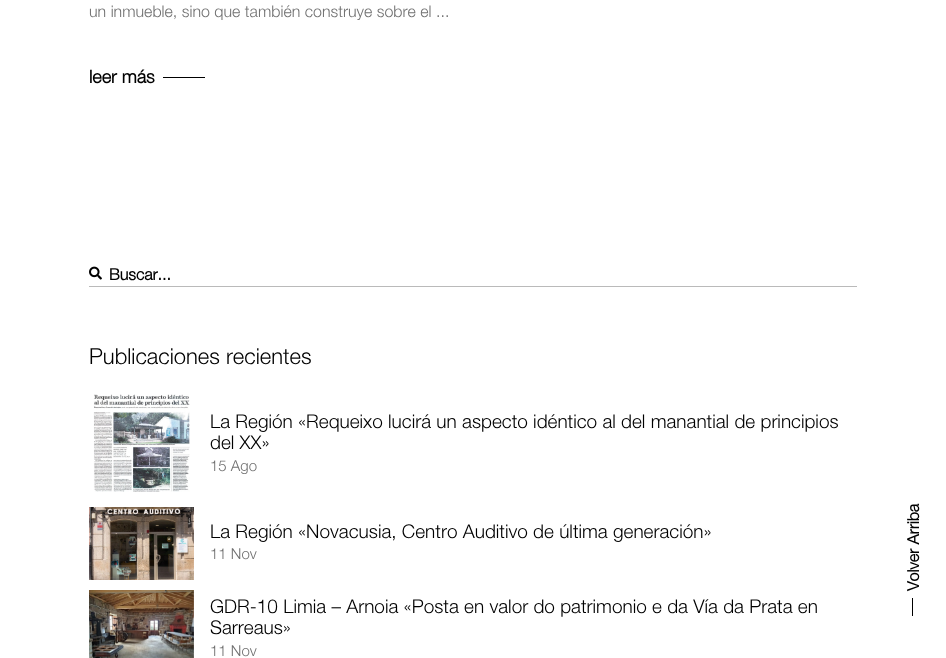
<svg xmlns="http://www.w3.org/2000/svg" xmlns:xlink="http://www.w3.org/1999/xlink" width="946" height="658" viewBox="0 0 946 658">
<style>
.cls-1{font:300 16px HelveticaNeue;fill:#717171}
.cls-2{font:bold 18px HelveticaNeue;fill:#000000}
.cls-3{font:bold 16px HelveticaNeue;fill:#000000}
.cls-4{font:300 22px HelveticaNeue;fill:#000000}
.cls-5{font:300 19px HelveticaNeue;fill:#000000}
.cls-6{font:300 15px HelveticaNeue;fill:#717171}
</style>
<rect width="100%" height="100%" fill="#ffffff"/>
<rect fill="#000000" x="163" y="77" width="42" height="1"/>
<rect fill="#bababa" x="89" y="286" width="768" height="1"/>
<image xlink:href="image0.png" x="89" y="266" width="13" height="14"/>
<image xlink:href="image1.png" x="93" y="394" width="97" height="98"/>
<image xlink:href="image2.png" x="89" y="507" width="105" height="73"/>
<image xlink:href="image3.png" x="89" y="590" width="105" height="68"/>
<rect fill="#000000" x="912" y="598" width="1" height="18"/>
<text class="cls-1" x="89" y="17">un inmueble, sino que también construye sobre el ...</text>
<text class="cls-2" x="89" y="83">leer más</text>
<text class="cls-3" x="109" y="280">Buscar...</text>
<text class="cls-4" x="89" y="364">Publicaciones recientes</text>
<text class="cls-5"><tspan x="210" y="428">La Región «Requeixo lucirá un aspecto idéntico al del manantial de principios</tspan><tspan x="210" y="449">del XX»</tspan></text>
<text class="cls-6" x="210" y="471">15 Ago</text>
<text class="cls-5" x="210" y="538">La Región «Novacusia, Centro Auditivo de última generación»</text>
<text class="cls-6" x="210" y="559">11 Nov</text>
<text class="cls-5"><tspan x="210" y="613">GDR-10 Limia – Arnoia «Posta en valor do patrimonio e da Vía da Prata en</tspan><tspan x="210" y="634">Sarreaus»</tspan></text>
<text class="cls-6" x="210" y="656">11 Nov</text>
<text class="cls-3" x="919" y="591" transform="rotate(-90 919 591)">Volver Arriba</text>
</svg>
